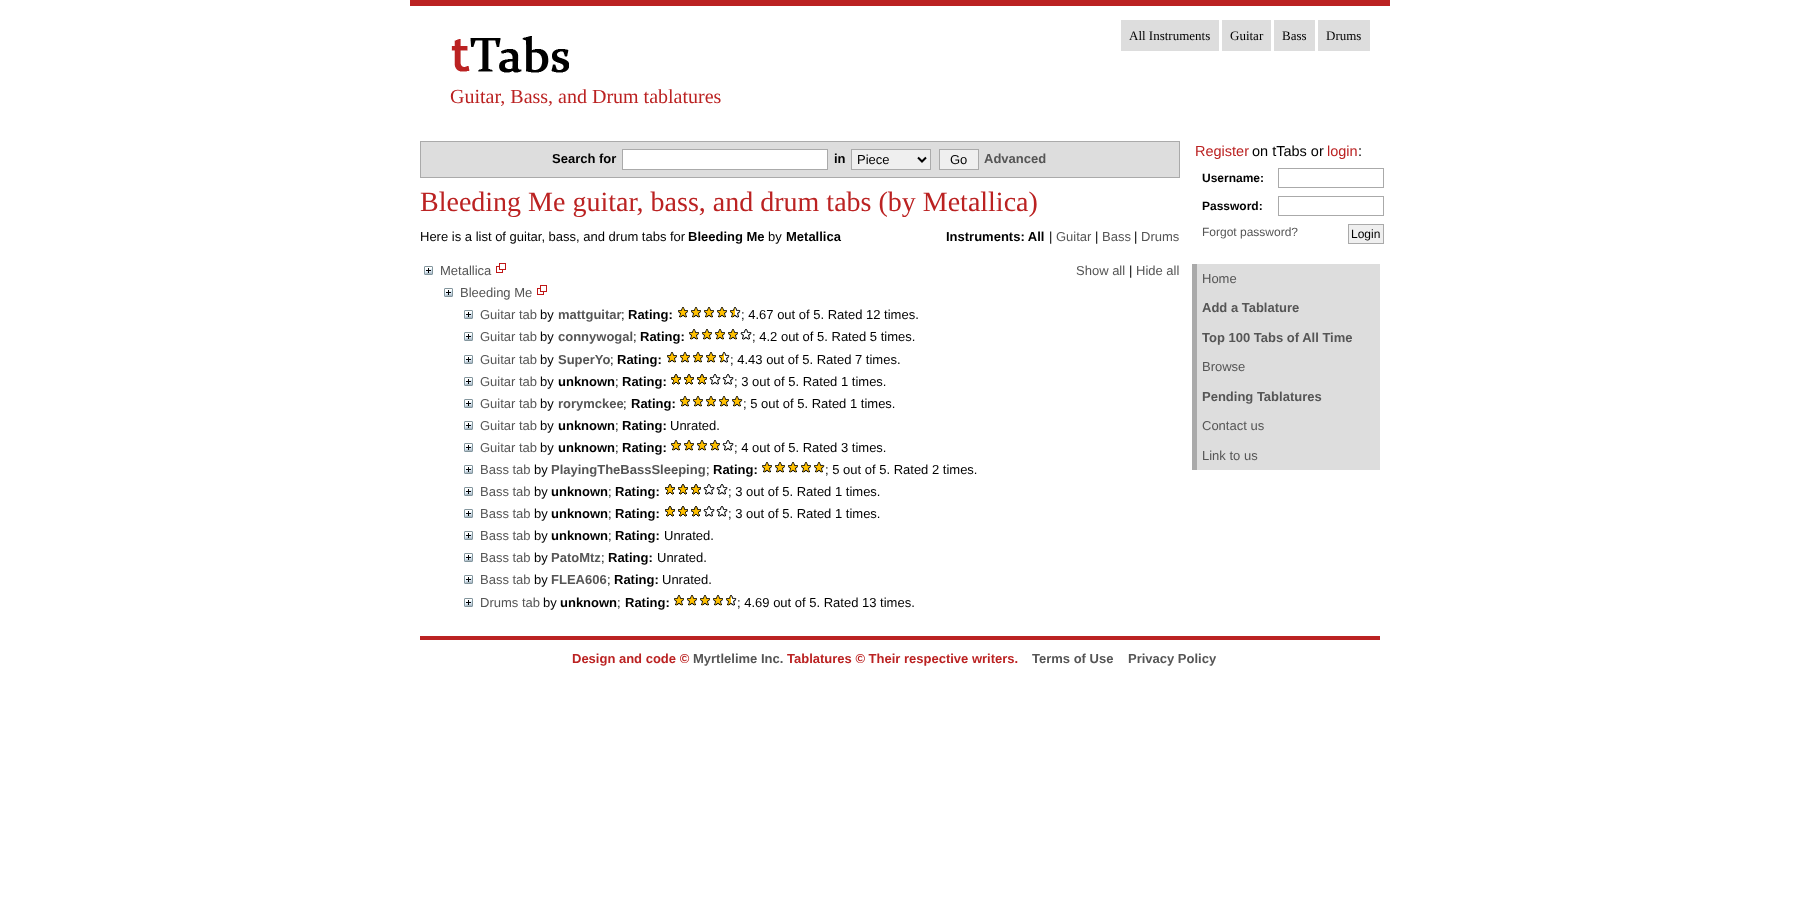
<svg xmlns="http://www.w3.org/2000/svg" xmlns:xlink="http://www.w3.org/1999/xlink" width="1799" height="903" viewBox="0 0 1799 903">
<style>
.cls-1{font:13px Liberation Serif;fill:#000000}
.cls-2{font:20px Liberation Serif;fill:#bb2222}
.cls-3{font:bold 13px Liberation Sans;fill:#000000}
.cls-4{font:13px Liberation Sans;fill:#000000}
.cls-5{font:bold 13px Liberation Sans;fill:#555555}
.cls-6{font:28px Liberation Serif;fill:#bb2222}
.cls-7{font:13px Liberation Sans;fill:#555555}
.cls-8{font:14.5px Liberation Sans;fill:#bb2222}
.cls-9{font:14.5px Liberation Sans;fill:#000000}
.cls-10{font:bold 12px Liberation Sans;fill:#000000}
.cls-11{font:12px Liberation Sans;fill:#555555}
.cls-12{font:12px Liberation Sans;fill:#000000}
.cls-13{font:bold 13px Liberation Sans;fill:#bb2222}
</style>
<rect width="100%" height="100%" fill="#ffffff"/>
<rect fill="#bb2222" x="410" y="0" width="980" height="6"/>
<rect fill="#dddddd" x="1121" y="20" width="98" height="31"/>
<rect fill="#dddddd" x="1222" y="20" width="49" height="31"/>
<rect fill="#dddddd" x="1274" y="20" width="41" height="31"/>
<rect fill="#dddddd" x="1318" y="20" width="52" height="31"/>
<image xlink:href="image0.png" x="451" y="36" width="118" height="37"/>
<rect fill="#dddddd" stroke="#aaaaaa" x="420.5" y="141.5" width="759" height="36"/>
<rect fill="#ffffff" stroke="#aaaaaa" x="622.5" y="149.5" width="205" height="20"/>
<rect fill="#efefef" stroke="#aaaaaa" x="851.5" y="149.5" width="79" height="20"/>
<path fill="none" stroke="#000000" stroke-width="2" d="M918 157.5L922 161.5L926 157.5"/>
<rect fill="#efefef" stroke="#aaaaaa" x="939.5" y="149.5" width="39" height="20"/>
<image xlink:href="image1.png" x="424" y="266" width="9" height="9"/>
<image xlink:href="image2.png" x="496" y="263" width="10" height="10"/>
<image xlink:href="image1.png" x="444" y="288" width="9" height="9"/>
<image xlink:href="image2.png" x="537" y="285" width="10" height="10"/>
<image xlink:href="image1.png" x="464" y="310" width="9" height="9"/>
<image xlink:href="image3.png" x="678" y="307" width="63" height="11"/>
<image xlink:href="image1.png" x="464" y="332" width="9" height="9"/>
<image xlink:href="image4.png" x="689" y="329" width="63" height="11"/>
<image xlink:href="image1.png" x="464" y="355" width="9" height="9"/>
<image xlink:href="image3.png" x="667" y="352" width="63" height="11"/>
<image xlink:href="image1.png" x="464" y="377" width="9" height="9"/>
<image xlink:href="image5.png" x="671" y="374" width="63" height="11"/>
<image xlink:href="image1.png" x="464" y="399" width="9" height="9"/>
<image xlink:href="image6.png" x="680" y="396" width="63" height="11"/>
<image xlink:href="image1.png" x="464" y="421" width="9" height="9"/>
<image xlink:href="image1.png" x="464" y="443" width="9" height="9"/>
<image xlink:href="image4.png" x="671" y="440" width="63" height="11"/>
<image xlink:href="image1.png" x="464" y="465" width="9" height="9"/>
<image xlink:href="image6.png" x="762" y="462" width="63" height="11"/>
<image xlink:href="image1.png" x="464" y="487" width="9" height="9"/>
<image xlink:href="image5.png" x="665" y="484" width="63" height="11"/>
<image xlink:href="image1.png" x="464" y="509" width="9" height="9"/>
<image xlink:href="image5.png" x="665" y="506" width="63" height="11"/>
<image xlink:href="image1.png" x="464" y="531" width="9" height="9"/>
<image xlink:href="image1.png" x="464" y="553" width="9" height="9"/>
<image xlink:href="image1.png" x="464" y="575" width="9" height="9"/>
<image xlink:href="image1.png" x="464" y="598" width="9" height="9"/>
<image xlink:href="image3.png" x="674" y="595" width="63" height="11"/>
<rect fill="none" stroke="#aaaaaa" x="1278.5" y="168.5" width="105" height="19"/>
<rect fill="none" stroke="#aaaaaa" x="1278.5" y="196.5" width="105" height="19"/>
<rect fill="#efefef" stroke="#aaaaaa" x="1348.5" y="224.5" width="35" height="19"/>
<rect fill="#dddddd" x="1197" y="264" width="183" height="206"/>
<rect fill="#aaaaaa" x="1192" y="264" width="5" height="206"/>
<rect fill="#bb2222" x="420" y="636" width="960" height="4"/>
<text class="cls-1" x="1129" y="40">All Instruments</text>
<text class="cls-1" x="1230" y="40">Guitar</text>
<text class="cls-1" x="1282" y="40">Bass</text>
<text class="cls-1" x="1326" y="40">Drums</text>
<text class="cls-2" x="450" y="103">Guitar, Bass, and Drum tablatures</text>
<text class="cls-3" x="552" y="163">Search for</text>
<text class="cls-3" x="834" y="163">in</text>
<text class="cls-4" x="857" y="164">Piece</text>
<text class="cls-4" x="950" y="164">Go</text>
<text class="cls-5" x="984" y="163">Advanced</text>
<text class="cls-6" x="420" y="211">Bleeding Me guitar, bass, and drum tabs (by Metallica)</text>
<text class="cls-4" x="420" y="241">Here is a list of guitar, bass, and drum tabs for</text>
<text class="cls-3" x="688" y="241">Bleeding Me</text>
<text class="cls-4" x="768" y="241">by</text>
<text class="cls-3" x="786" y="241">Metallica</text>
<text class="cls-3" x="946" y="241">Instruments: All</text>
<text class="cls-4" x="1049" y="241">|</text>
<text class="cls-7" x="1056" y="241">Guitar</text>
<text class="cls-4" x="1095" y="241">|</text>
<text class="cls-7" x="1102" y="241">Bass</text>
<text class="cls-4" x="1134" y="241">|</text>
<text class="cls-7" x="1141" y="241">Drums</text>
<text class="cls-7" x="440" y="275">Metallica</text>
<text class="cls-7" x="460" y="297">Bleeding Me</text>
<text class="cls-7" x="480" y="319">Guitar tab</text>
<text class="cls-4" x="540" y="319">by</text>
<text class="cls-5" x="558" y="319">mattguitar</text>
<text class="cls-4" x="621" y="319">;</text>
<text class="cls-3" x="628" y="319">Rating:</text>
<text class="cls-4" x="741" y="319">; 4.67 out of 5. Rated 12 times.</text>
<text class="cls-7" x="480" y="341">Guitar tab</text>
<text class="cls-4" x="540" y="341">by</text>
<text class="cls-5" x="558" y="341">connywogal</text>
<text class="cls-4" x="633" y="341">;</text>
<text class="cls-3" x="640" y="341">Rating:</text>
<text class="cls-4" x="752" y="341">; 4.2 out of 5. Rated 5 times.</text>
<text class="cls-7" x="480" y="364">Guitar tab</text>
<text class="cls-4" x="540" y="364">by</text>
<text class="cls-5" x="558" y="364">SuperYo</text>
<text class="cls-4" x="610" y="364">;</text>
<text class="cls-3" x="617" y="364">Rating:</text>
<text class="cls-4" x="730" y="364">; 4.43 out of 5. Rated 7 times.</text>
<text class="cls-7" x="480" y="386">Guitar tab</text>
<text class="cls-4" x="540" y="386">by</text>
<text class="cls-3" x="558" y="386">unknown</text>
<text class="cls-4" x="615" y="386">;</text>
<text class="cls-3" x="622" y="386">Rating:</text>
<text class="cls-4" x="734" y="386">; 3 out of 5. Rated 1 times.</text>
<text class="cls-7" x="480" y="408">Guitar tab</text>
<text class="cls-4" x="540" y="408">by</text>
<text class="cls-5" x="558" y="408">rorymckee</text>
<text class="cls-4" x="623" y="408">;</text>
<text class="cls-3" x="631" y="408">Rating:</text>
<text class="cls-4" x="743" y="408">; 5 out of 5. Rated 1 times.</text>
<text class="cls-7" x="480" y="430">Guitar tab</text>
<text class="cls-4" x="540" y="430">by</text>
<text class="cls-3" x="558" y="430">unknown</text>
<text class="cls-4" x="615" y="430">;</text>
<text class="cls-3" x="622" y="430">Rating:</text>
<text class="cls-4" x="670" y="430">Unrated.</text>
<text class="cls-7" x="480" y="452">Guitar tab</text>
<text class="cls-4" x="540" y="452">by</text>
<text class="cls-3" x="558" y="452">unknown</text>
<text class="cls-4" x="615" y="452">;</text>
<text class="cls-3" x="622" y="452">Rating:</text>
<text class="cls-4" x="734" y="452">; 4 out of 5. Rated 3 times.</text>
<text class="cls-7" x="480" y="474">Bass tab</text>
<text class="cls-4" x="534" y="474">by</text>
<text class="cls-5" x="551" y="474">PlayingTheBassSleeping</text>
<text class="cls-4" x="706" y="474">;</text>
<text class="cls-3" x="713" y="474">Rating:</text>
<text class="cls-4" x="825" y="474">; 5 out of 5. Rated 2 times.</text>
<text class="cls-7" x="480" y="496">Bass tab</text>
<text class="cls-4" x="534" y="496">by</text>
<text class="cls-3" x="551" y="496">unknown</text>
<text class="cls-4" x="608" y="496">;</text>
<text class="cls-3" x="615" y="496">Rating:</text>
<text class="cls-4" x="728" y="496">; 3 out of 5. Rated 1 times.</text>
<text class="cls-7" x="480" y="518">Bass tab</text>
<text class="cls-4" x="534" y="518">by</text>
<text class="cls-3" x="551" y="518">unknown</text>
<text class="cls-4" x="608" y="518">;</text>
<text class="cls-3" x="615" y="518">Rating:</text>
<text class="cls-4" x="728" y="518">; 3 out of 5. Rated 1 times.</text>
<text class="cls-7" x="480" y="540">Bass tab</text>
<text class="cls-4" x="534" y="540">by</text>
<text class="cls-3" x="551" y="540">unknown</text>
<text class="cls-4" x="608" y="540">;</text>
<text class="cls-3" x="615" y="540">Rating:</text>
<text class="cls-4" x="664" y="540">Unrated.</text>
<text class="cls-7" x="480" y="562">Bass tab</text>
<text class="cls-4" x="534" y="562">by</text>
<text class="cls-5" x="551" y="562">PatoMtz</text>
<text class="cls-4" x="601" y="562">;</text>
<text class="cls-3" x="608" y="562">Rating:</text>
<text class="cls-4" x="657" y="562">Unrated.</text>
<text class="cls-7" x="480" y="584">Bass tab</text>
<text class="cls-4" x="534" y="584">by</text>
<text class="cls-5" x="551" y="584">FLEA606</text>
<text class="cls-4" x="607" y="584">;</text>
<text class="cls-3" x="614" y="584">Rating:</text>
<text class="cls-4" x="662" y="584">Unrated.</text>
<text class="cls-7" x="480" y="607">Drums tab</text>
<text class="cls-4" x="543" y="607">by</text>
<text class="cls-3" x="560" y="607">unknown</text>
<text class="cls-4" x="617" y="607">;</text>
<text class="cls-3" x="625" y="607">Rating:</text>
<text class="cls-4" x="737" y="607">; 4.69 out of 5. Rated 13 times.</text>
<text class="cls-7" x="1076" y="275">Show all</text>
<text class="cls-4" x="1129" y="275">|</text>
<text class="cls-7" x="1136" y="275">Hide all</text>
<text class="cls-8" x="1195" y="156">Register</text>
<text class="cls-9" x="1252" y="156">on tTabs or</text>
<text class="cls-8" x="1327" y="156">login</text>
<text class="cls-9" x="1358" y="156">:</text>
<text class="cls-10" x="1202" y="182">Username:</text>
<text class="cls-10" x="1202" y="210">Password:</text>
<text class="cls-11" x="1202" y="236">Forgot password?</text>
<text class="cls-12" x="1351" y="238">Login</text>
<text class="cls-7" x="1202" y="283">Home</text>
<text class="cls-5" x="1202" y="312">Add a Tablature</text>
<text class="cls-5" x="1202" y="342">Top 100 Tabs of All Time</text>
<text class="cls-7" x="1202" y="371">Browse</text>
<text class="cls-5" x="1202" y="401">Pending Tablatures</text>
<text class="cls-7" x="1202" y="430">Contact us</text>
<text class="cls-7" x="1202" y="460">Link to us</text>
<text class="cls-13" x="572" y="663">Design and code ©</text>
<text class="cls-5" x="693" y="663">Myrtlelime Inc.</text>
<text class="cls-13" x="787" y="663">Tablatures © Their respective writers.</text>
<text class="cls-5" x="1032" y="663">Terms of Use</text>
<text class="cls-5" x="1128" y="663">Privacy Policy</text>
</svg>
